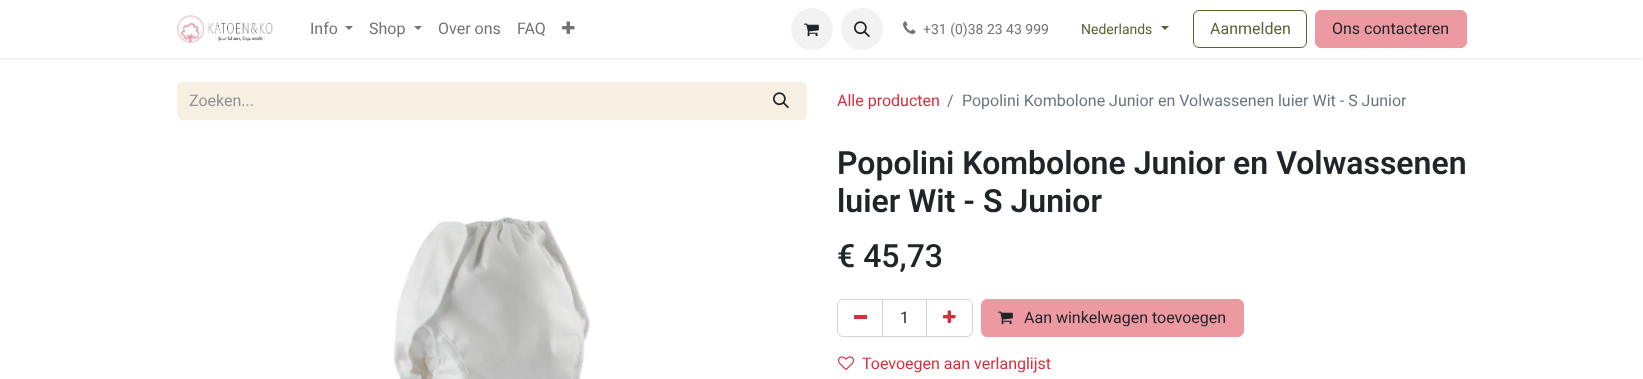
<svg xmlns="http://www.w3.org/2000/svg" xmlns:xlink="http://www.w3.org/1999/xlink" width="1643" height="379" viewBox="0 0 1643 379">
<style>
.cls-1{font:16px Roboto;fill:#737373}
.cls-2{font:14px Roboto;fill:#737373}
.cls-3{font:14px Roboto;fill:#556433}
.cls-4{font:16px Roboto;fill:#556433}
.cls-5{font:16px Roboto;fill:#212529}
.cls-6{font:16px Roboto;fill:#909294}
.cls-7{font:16px Roboto;fill:#d82e3e}
.cls-8{font:16px Roboto;fill:#6c757d}
.cls-9{font:600 32px Roboto;fill:#212529}
.cls-10{font:500 32px Roboto;fill:#212529}
</style>
<defs>
<clipPath id="clip1"><rect x="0" y="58" width="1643" height="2"/></clipPath>
</defs>
<rect width="100%" height="100%" fill="#ffffff"/>
<g clip-path="url(#clip1)">
<rect fill="#000000" fill-opacity="0.1" filter="blur(1.5px)" x="0" y="1" width="1643" height="58"/>
</g>
<image xlink:href="image0.png" x="177" y="15" width="96" height="29"/>
<path fill="#737373" d="M345 26H353L349 30Z"/>
<path fill="#737373" d="M414 26H422L418 30Z"/>
<image xlink:href="image1.png" x="562" y="21" width="13" height="13"/>
<circle fill="#f2f2f2" cx="812" cy="29" r="21"/>
<image xlink:href="image2.png" x="804" y="23" width="15" height="14"/>
<circle fill="#f2f2f2" cx="862" cy="29" r="21"/>
<image xlink:href="image3.png" x="854" y="21" width="16" height="17"/>
<image xlink:href="image4.png" x="903" y="21" width="13" height="13"/>
<path fill="#556433" d="M1161 26H1169L1165 30Z"/>
<rect fill="none" stroke="#556433" x="1193.5" y="10.5" width="113" height="37" rx="5.5"/>
<rect fill="#ec99a1" stroke="#ec99a1" x="1315.5" y="10.5" width="151" height="37" rx="5.5"/>
<path fill="#f7efe2" d="M183 82H757V120H183C179.5 120 177 117.5 177 114V88C177 84.5 179.5 82 183 82Z"/>
<path fill="#f7efe2" stroke="#f7efe2" d="M756.5 82.5H801C804 82.5 806.5 85 806.5 88V114C806.5 117 804 119.5 801 119.5H756.5Z"/>
<image xlink:href="image5.png" x="773" y="92" width="16" height="17"/>
<image xlink:href="image6.png" x="393" y="217" width="197" height="162"/>
<rect fill="none" stroke="#ced4da" x="882.5" y="299.5" width="44" height="37"/>
<path fill="none" stroke="#ced4da" d="M843 299.5H882.5V336.5H843C840 336.5 837.5 334 837.5 331V305C837.5 302 840 299.5 843 299.5Z"/>
<rect fill="#d82e3e" x="854" y="315" width="13" height="4"/>
<path fill="none" stroke="#ced4da" d="M926.5 299.5H967C970 299.5 972.5 302 972.5 305V331C972.5 334 970 336.5 967 336.5H926.5Z"/>
<image xlink:href="image7.png" x="943" y="310" width="13" height="13"/>
<rect fill="#ec99a1" stroke="#ec99a1" x="981.5" y="299.5" width="262" height="37" rx="5.5"/>
<image xlink:href="image8.png" x="998" y="311" width="15" height="14"/>
<image xlink:href="image9.png" x="838" y="356" width="16" height="15"/>
<text class="cls-1" x="310" y="34">Info</text>
<text class="cls-1" x="369" y="34">Shop</text>
<text class="cls-1" x="438" y="34">Over ons</text>
<text class="cls-1" x="517" y="34">FAQ</text>
<text class="cls-2" x="923" y="34">+31 (0)38 23 43 999</text>
<text class="cls-3" x="1081" y="34">Nederlands</text>
<text class="cls-4" x="1210" y="34">Aanmelden</text>
<text class="cls-5" x="1332" y="34">Ons contacteren</text>
<text class="cls-6" x="189" y="106">Zoeken...</text>
<text class="cls-7" x="837" y="106">Alle producten</text>
<text class="cls-8" x="947" y="106">/</text>
<text class="cls-8" x="962" y="106">Popolini Kombolone Junior en Volwassenen luier Wit - S Junior</text>
<text class="cls-9"><tspan x="837" y="174">Popolini Kombolone Junior en Volwassenen</tspan><tspan x="837" y="212">luier Wit - S Junior</tspan></text>
<text class="cls-10" x="837" y="267">€ 45,73</text>
<text class="cls-5" x="900" y="323">1</text>
<text class="cls-5" x="1024" y="323">Aan winkelwagen toevoegen</text>
<text class="cls-7" x="862" y="369">Toevoegen aan verlanglijst</text>
</svg>
